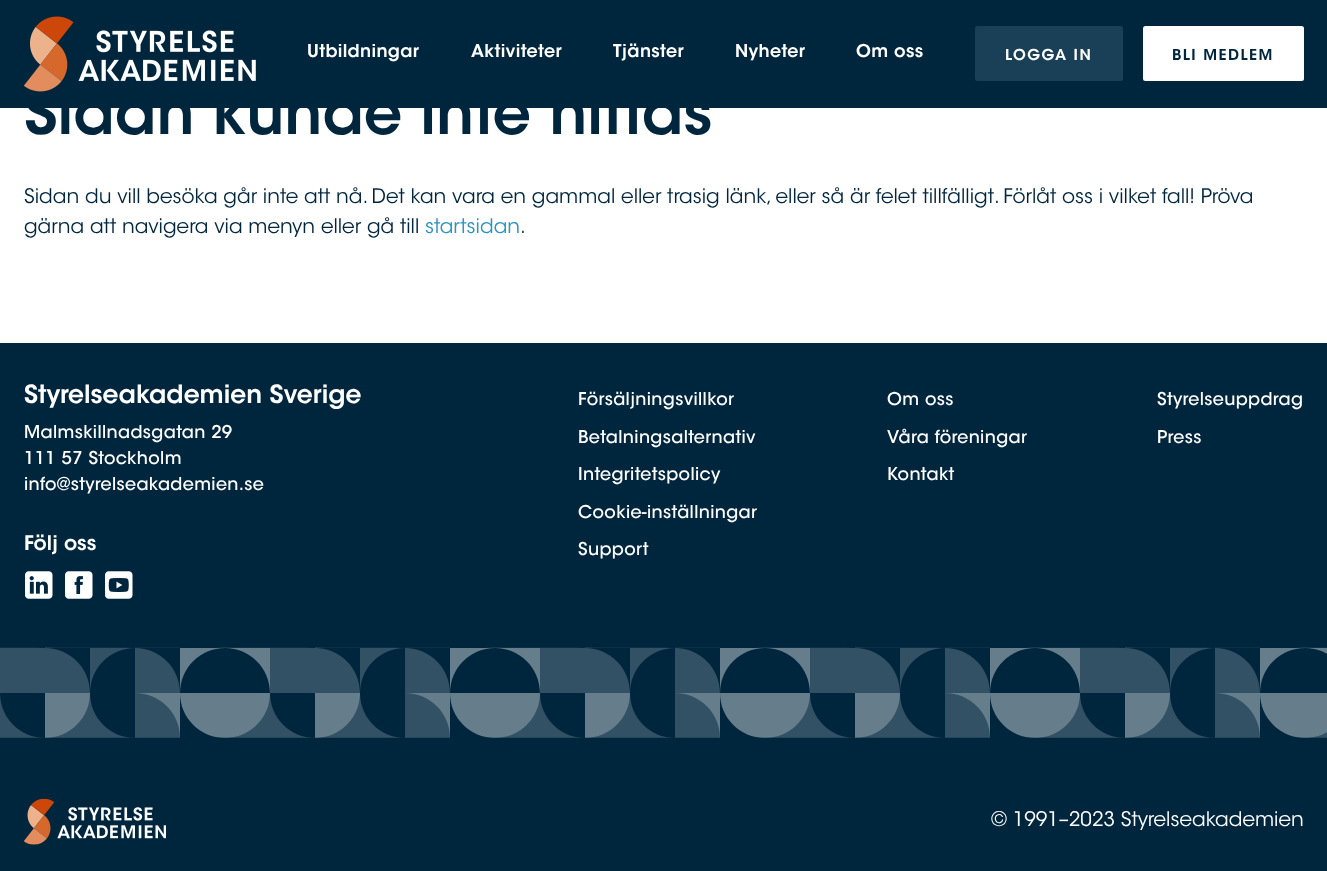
<svg xmlns="http://www.w3.org/2000/svg" xmlns:xlink="http://www.w3.org/1999/xlink" width="1327" height="871" viewBox="0 0 1327 871">
<style>
.cls-1{font:600 17.5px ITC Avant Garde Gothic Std;letter-spacing:0.35px;fill:#ffffff}
.cls-2{font:600 15px ITC Avant Garde Gothic Std;letter-spacing:1.5px;fill:#ffffff}
.cls-3{font:600 15px ITC Avant Garde Gothic Std;letter-spacing:1.5px;fill:#00263e}
.cls-4{font:600 60px ITC Avant Garde Gothic Std;fill:#00263e}
.cls-5{font:300 20px ITC Avant Garde Gothic Std;fill:#00263e}
.cls-6{font:300 20px ITC Avant Garde Gothic Std;fill:#2c93c0}
.cls-7{font:600 25px ITC Avant Garde Gothic Std;fill:#ffffff}
.cls-8{font:500 17.5px ITC Avant Garde Gothic Std;letter-spacing:0.35px;fill:#ffffff}
.cls-9{font:600 20px ITC Avant Garde Gothic Std;fill:#ffffff}
.cls-10{font:300 20px ITC Avant Garde Gothic Std;fill:#ffffff}
</style>
<rect width="100%" height="100%" fill="#ffffff"/>
<rect fill="#00263e" x="0" y="0" width="1327" height="108"/>
<rect fill="#1a4057" x="975" y="26" width="148" height="55" rx="2.5"/>
<rect fill="#ffffff" x="1143" y="26" width="161" height="55" rx="2.5"/>
<rect fill="#00263e" x="0" y="343" width="1327" height="528"/>
<image xlink:href="image1.png" x="25" y="571" width="28" height="28"/>
<image xlink:href="image2.png" x="65" y="571" width="28" height="28"/>
<image xlink:href="image3.png" x="105" y="571" width="28" height="28"/>
<image xlink:href="image4.png" x="0" y="647" width="1327" height="91"/>
<image xlink:href="image5.png" x="24" y="798" width="142" height="47"/>
<text class="cls-1" x="307" y="57">Utbildningar</text>
<text class="cls-1" x="471" y="57">Aktiviteter</text>
<text class="cls-1" x="613" y="57">Tjänster</text>
<text class="cls-1" x="735" y="57">Nyheter</text>
<text class="cls-1" x="856" y="57">Om oss</text>
<text class="cls-2" x="1005" y="60">LOGGA IN</text>
<text class="cls-3" x="1172" y="60">BLI MEDLEM</text>
<text class="cls-4" x="24" y="134">Sidan kunde inte hittas</text>
<image xlink:href="image0.png" x="24" y="16" width="232" height="76"/>
<text class="cls-5"><tspan x="24" y="203">Sidan du vill besöka går inte att nå. Det kan vara en gammal eller trasig länk, eller så är felet tillfälligt. Förlåt oss i vilket fall! Pröva</tspan><tspan x="24" y="233">gärna att navigera via menyn eller gå till</tspan></text>
<text class="cls-6" x="425" y="233">startsidan</text>
<text class="cls-5" x="520" y="233">.</text>
<text class="cls-7" x="24" y="403">Styrelseakademien Sverige</text>
<text class="cls-8"><tspan x="24" y="438">Malmskillnadsgatan 29</tspan><tspan x="24" y="464">111 57 Stockholm</tspan><tspan x="24" y="490">info@styrelseakademien.se</tspan></text>
<text class="cls-9" x="24" y="550">Följ oss</text>
<text class="cls-8" x="578" y="405">Försäljningsvillkor</text>
<text class="cls-8" x="578" y="443">Betalningsalternativ</text>
<text class="cls-8" x="578" y="480">Integritetspolicy</text>
<text class="cls-8" x="578" y="518">Cookie-inställningar</text>
<text class="cls-8" x="578" y="555">Support</text>
<text class="cls-8" x="887" y="405">Om oss</text>
<text class="cls-8" x="887" y="443">Våra föreningar</text>
<text class="cls-8" x="887" y="480">Kontakt</text>
<text class="cls-8" x="1157" y="405">Styrelseuppdrag</text>
<text class="cls-8" x="1157" y="443">Press</text>
<text class="cls-10" x="991" y="826">© 1991–2023 Styrelseakademien</text>
</svg>
